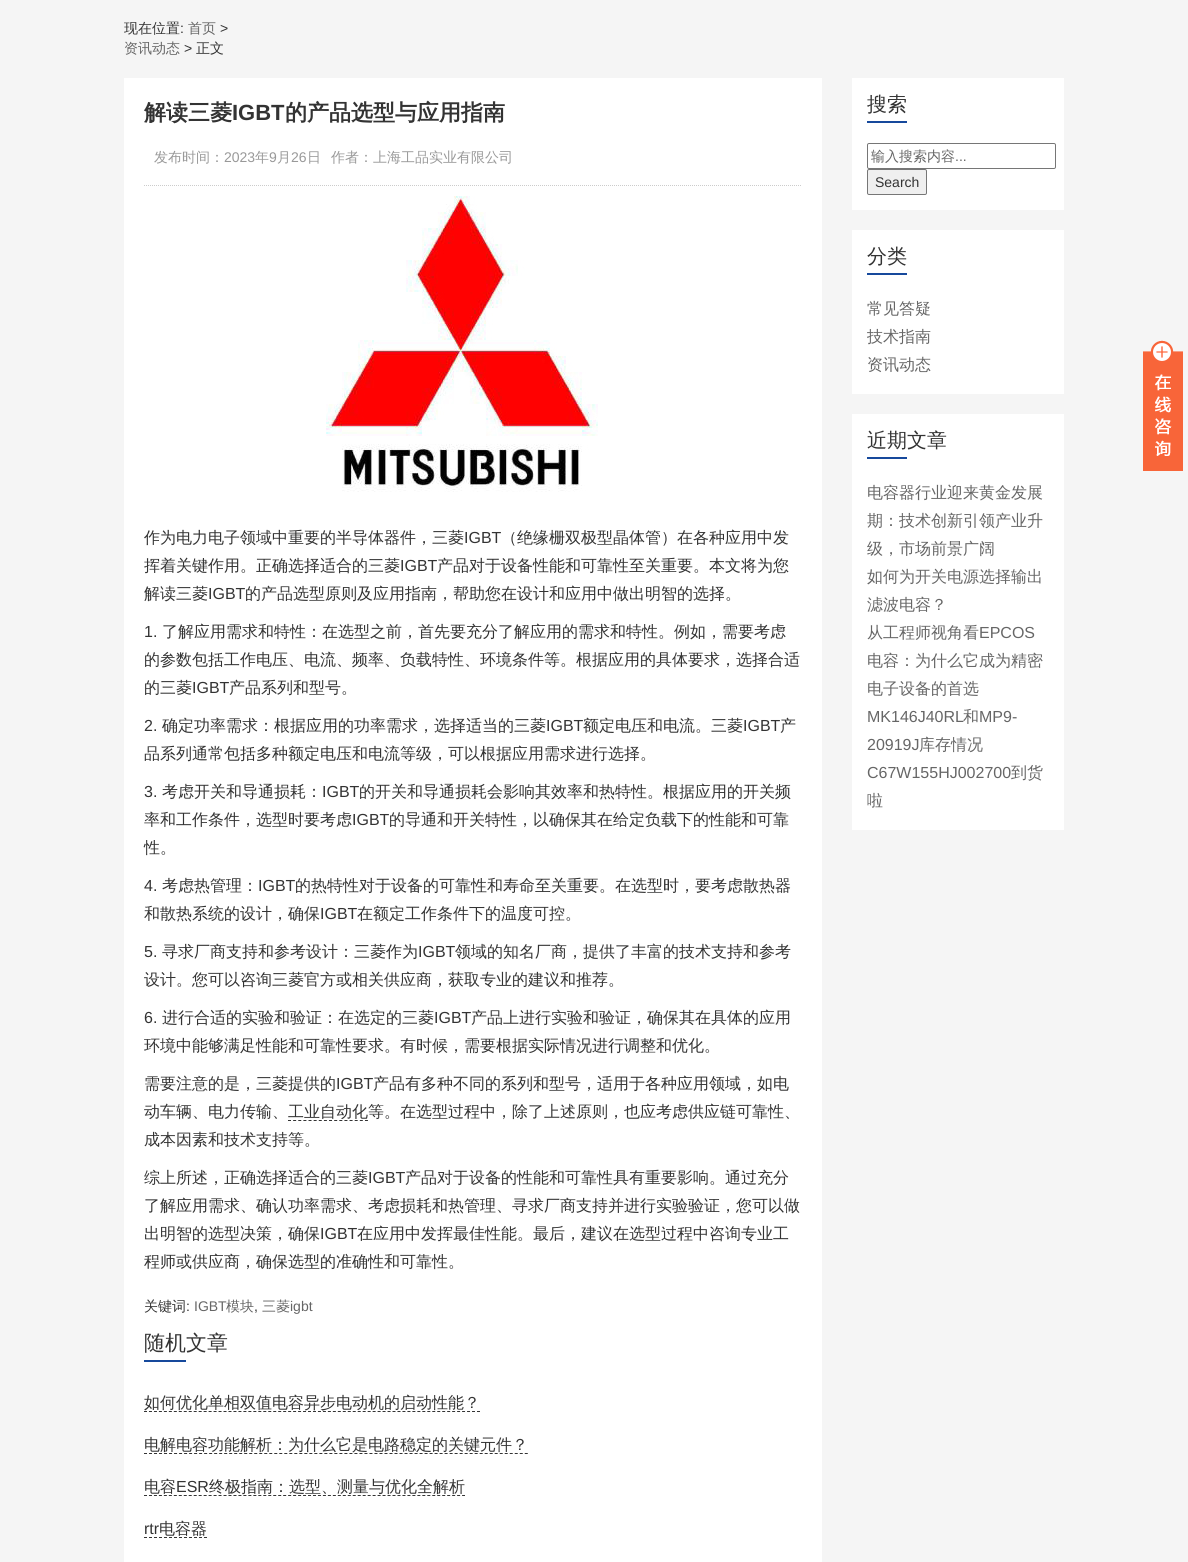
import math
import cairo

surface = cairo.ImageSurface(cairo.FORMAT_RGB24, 1188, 1562)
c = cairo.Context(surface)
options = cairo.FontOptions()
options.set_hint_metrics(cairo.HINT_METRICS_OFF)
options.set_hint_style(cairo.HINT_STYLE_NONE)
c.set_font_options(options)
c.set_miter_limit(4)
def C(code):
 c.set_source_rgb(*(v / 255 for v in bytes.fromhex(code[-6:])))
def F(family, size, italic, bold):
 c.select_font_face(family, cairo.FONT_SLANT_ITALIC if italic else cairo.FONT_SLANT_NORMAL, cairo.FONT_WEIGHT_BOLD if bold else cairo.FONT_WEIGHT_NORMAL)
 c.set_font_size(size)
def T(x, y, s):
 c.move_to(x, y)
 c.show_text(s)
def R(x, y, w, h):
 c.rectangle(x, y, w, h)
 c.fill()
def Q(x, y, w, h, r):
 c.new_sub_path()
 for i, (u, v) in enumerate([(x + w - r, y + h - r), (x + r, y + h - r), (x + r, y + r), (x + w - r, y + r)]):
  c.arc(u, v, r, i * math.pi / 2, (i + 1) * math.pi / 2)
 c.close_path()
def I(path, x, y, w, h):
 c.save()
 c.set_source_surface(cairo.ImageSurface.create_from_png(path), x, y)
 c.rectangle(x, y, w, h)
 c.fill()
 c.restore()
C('f5f5f5')
c.paint()
F('WenQuanYi Zen Hei Medium',14,0,0)
C('333333')
T(124,33,'现在位置')
F('Liberation Sans',14,0,0)
T(180,33,':')
F('WenQuanYi Zen Hei Medium',14,0,0)
C('666666')
T(188,33,'首页')
F('Liberation Sans',14,0,0)
C('333333')
T(220,33,'>')
F('WenQuanYi Zen Hei Medium',14,0,0)
C('666666')
T(124,53,'资讯动态')
F('Liberation Sans',14,0,0)
C('333333')
T(184,53,'>')
F('WenQuanYi Zen Hei Medium',14,0,0)
T(196,53,'正文')
C('ffffff')
R(124,78,698,1484)
c.new_path()
c.move_to(144,185.5)
c.line_to(802,185.5)
C('cccccc')
c.set_line_width(1)
c.set_dash([1,1])
c.stroke()
F('WenQuanYi Zen Hei',22,0,1)
C('333333')
T(144,120,'解读三菱')
F('Liberation Sans',22,0,1)
T(232,120,'IGBT')
F('WenQuanYi Zen Hei',22,0,1)
T(285,120,'的产品选型与应用指南')
F('WenQuanYi Zen Hei Medium',14,0,0)
C('999999')
T(154,162,'发布时间：')
F('Liberation Sans',14,0,0)
T(224,162,'2023')
F('WenQuanYi Zen Hei Medium',14,0,0)
T(255,162,'年')
F('Liberation Sans',14,0,0)
T(269,162,'9')
F('WenQuanYi Zen Hei Medium',14,0,0)
T(277,162,'月')
F('Liberation Sans',14,0,0)
T(291,162,'26')
F('WenQuanYi Zen Hei Medium',14,0,0)
T(307,162,'日')
T(331,162,'作者：上海工品实业有限公司')
I('1.png',326,196,272,296)
F('WenQuanYi Zen Hei Medium',16,0,0)
C('333333')
T(144,543,'作为电力电子领域中重要的半导体器件，三菱')
F('Liberation Sans',16,0,0)
T(464,543,'IGBT')
F('WenQuanYi Zen Hei Medium',16,0,0)
T(501,543,'（绝缘栅双极型晶体管）在各种应用中发')
T(144,571,'挥着关键作用。正确选择适合的三菱')
F('Liberation Sans',16,0,0)
T(400,571,'IGBT')
F('WenQuanYi Zen Hei Medium',16,0,0)
T(437,571,'产品对于设备性能和可靠性至关重要。本文将为您')
T(144,599,'解读三菱')
F('Liberation Sans',16,0,0)
T(208,599,'IGBT')
F('WenQuanYi Zen Hei Medium',16,0,0)
T(245,599,'的产品选型原则及应用指南，帮助您在设计和应用中做出明智的选择。')
F('Liberation Sans',16,0,0)
T(144,637,'1.')
F('WenQuanYi Zen Hei Medium',16,0,0)
T(162,637,'了解应用需求和特性：在选型之前，首先要充分了解应用的需求和特性。例如，需要考虑')
T(144,665,'的参数包括工作电压、电流、频率、负载特性、环境条件等。根据应用的具体要求，选择合适')
T(144,693,'的三菱')
F('Liberation Sans',16,0,0)
T(192,693,'IGBT')
F('WenQuanYi Zen Hei Medium',16,0,0)
T(229,693,'产品系列和型号。')
F('Liberation Sans',16,0,0)
T(144,731,'2.')
F('WenQuanYi Zen Hei Medium',16,0,0)
T(162,731,'确定功率需求：根据应用的功率需求，选择适当的三菱')
F('Liberation Sans',16,0,0)
T(546,731,'IGBT')
F('WenQuanYi Zen Hei Medium',16,0,0)
T(583,731,'额定电压和电流。三菱')
F('Liberation Sans',16,0,0)
T(743,731,'IGBT')
F('WenQuanYi Zen Hei Medium',16,0,0)
T(780,731,'产')
T(144,759,'品系列通常包括多种额定电压和电流等级，可以根据应用需求进行选择。')
F('Liberation Sans',16,0,0)
T(144,797,'3.')
F('WenQuanYi Zen Hei Medium',16,0,0)
T(162,797,'考虑开关和导通损耗：')
F('Liberation Sans',16,0,0)
T(322,797,'IGBT')
F('WenQuanYi Zen Hei Medium',16,0,0)
T(359,797,'的开关和导通损耗会影响其效率和热特性。根据应用的开关频')
T(144,825,'率和工作条件，选型时要考虑')
F('Liberation Sans',16,0,0)
T(352,825,'IGBT')
F('WenQuanYi Zen Hei Medium',16,0,0)
T(389,825,'的导通和开关特性，以确保其在给定负载下的性能和可靠')
T(144,853,'性。')
F('Liberation Sans',16,0,0)
T(144,891,'4.')
F('WenQuanYi Zen Hei Medium',16,0,0)
T(162,891,'考虑热管理：')
F('Liberation Sans',16,0,0)
T(258,891,'IGBT')
F('WenQuanYi Zen Hei Medium',16,0,0)
T(295,891,'的热特性对于设备的可靠性和寿命至关重要。在选型时，要考虑散热器')
T(144,919,'和散热系统的设计，确保')
F('Liberation Sans',16,0,0)
T(320,919,'IGBT')
F('WenQuanYi Zen Hei Medium',16,0,0)
T(357,919,'在额定工作条件下的温度可控。')
F('Liberation Sans',16,0,0)
T(144,957,'5.')
F('WenQuanYi Zen Hei Medium',16,0,0)
T(162,957,'寻求厂商支持和参考设计：三菱作为')
F('Liberation Sans',16,0,0)
T(418,957,'IGBT')
F('WenQuanYi Zen Hei Medium',16,0,0)
T(455,957,'领域的知名厂商，提供了丰富的技术支持和参考')
T(144,985,'设计。您可以咨询三菱官方或相关供应商，获取专业的建议和推荐。')
F('Liberation Sans',16,0,0)
T(144,1023,'6.')
F('WenQuanYi Zen Hei Medium',16,0,0)
T(162,1023,'进行合适的实验和验证：在选定的三菱')
F('Liberation Sans',16,0,0)
T(434,1023,'IGBT')
F('WenQuanYi Zen Hei Medium',16,0,0)
T(471,1023,'产品上进行实验和验证，确保其在具体的应用')
T(144,1051,'环境中能够满足性能和可靠性要求。有时候，需要根据实际情况进行调整和优化。')
T(144,1089,'需要注意的是，三菱提供的')
F('Liberation Sans',16,0,0)
T(336,1089,'IGBT')
F('WenQuanYi Zen Hei Medium',16,0,0)
T(373,1089,'产品有多种不同的系列和型号，适用于各种应用领域，如电')
T(144,1117,'动车辆、电力传输、工业自动化等。在选型过程中，除了上述原则，也应考虑供应链可靠性、')
c.new_path()
c.move_to(288,1120.5)
c.line_to(368,1120.5)
c.set_dash([3,2.13])
c.stroke()
T(144,1145,'成本因素和技术支持等。')
T(144,1183,'综上所述，正确选择适合的三菱')
F('Liberation Sans',16,0,0)
T(368,1183,'IGBT')
F('WenQuanYi Zen Hei Medium',16,0,0)
T(405,1183,'产品对于设备的性能和可靠性具有重要影响。通过充分')
T(144,1211,'了解应用需求、确认功率需求、考虑损耗和热管理、寻求厂商支持并进行实验验证，您可以做')
T(144,1239,'出明智的选型决策，确保')
F('Liberation Sans',16,0,0)
T(320,1239,'IGBT')
F('WenQuanYi Zen Hei Medium',16,0,0)
T(357,1239,'在应用中发挥最佳性能。最后，建议在选型过程中咨询专业工')
T(144,1267,'程师或供应商，确保选型的准确性和可靠性。')
F('WenQuanYi Zen Hei Medium',14,0,0)
T(144,1311,'关键词')
F('Liberation Sans',14,0,0)
T(186,1311,':')
C('666666')
T(194,1311,'IGBT')
F('WenQuanYi Zen Hei Medium',14,0,0)
T(226,1311,'模块')
F('Liberation Sans',14,0,0)
C('333333')
T(254,1311,',')
F('WenQuanYi Zen Hei Medium',14,0,0)
C('666666')
T(262,1311,'三菱')
F('Liberation Sans',14,0,0)
T(290,1311,'igbt')
F('WenQuanYi Zen Hei Medium',21,0,0)
C('333333')
T(144,1350,'随机文章')
C('16499c')
R(144,1360,42,2)
F('WenQuanYi Zen Hei Medium',16,0,0)
C('333333')
T(144,1408,'如何优化单相双值电容异步电动机的启动性能？')
c.new_path()
c.move_to(144,1411.5)
c.line_to(480,1411.5)
c.set_dash([3,1.97])
c.stroke()
T(144,1450,'电解电容功能解析：为什么它是电路稳定的关键元件？')
c.new_path()
c.move_to(144,1453.5)
c.line_to(528,1453.5)
c.set_dash([3,2.01])
c.stroke()
T(144,1492,'电容')
F('Liberation Sans',16,0,0)
T(176,1492,'ESR')
c.new_path()
c.move_to(144,1495.5)
c.line_to(465,1495.5)
c.set_dash([3,1.97])
c.stroke()
F('WenQuanYi Zen Hei Medium',16,0,0)
T(209,1492,'终极指南：选型、测量与优化全解析')
F('Liberation Sans',16,0,0)
T(144,1534,'rtr')
c.new_path()
c.move_to(144,1537.5)
c.line_to(207,1537.5)
c.set_dash([3,2])
c.stroke()
F('WenQuanYi Zen Hei Medium',16,0,0)
T(159,1534,'电容器')
C('ffffff')
R(852,78,212,132)
F('WenQuanYi Zen Hei Medium',20,0,0)
C('333333')
T(867,111,'搜索')
C('16499c')
R(867,121,40,2)
Q(867.5,143.5,188,25,1.5)
C('767676')
c.set_dash([])
c.stroke()
c.save()
c.rectangle(871,148,181,18)
c.clip()
F('WenQuanYi Zen Hei Medium',14,0,0)
C('666666')
T(871,161,'输入搜索内容')
c.restore()
F('Liberation Sans',14,0,0)
C('666666')
T(955,161,'...')
C('efefef')
Q(867.5,169.5,59,25,1.5)
c.fill_preserve()
C('767676')
c.stroke()
C('333333')
T(875,187,'Search')
C('ffffff')
R(852,230,212,164)
F('WenQuanYi Zen Hei Medium',20,0,0)
C('333333')
T(867,263,'分类')
C('16499c')
R(867,273,40,2)
F('WenQuanYi Zen Hei Medium',16,0,0)
C('666666')
T(867,314,'常见答疑')
T(867,342,'技术指南')
T(867,370,'资讯动态')
C('ffffff')
R(852,414,212,416)
F('WenQuanYi Zen Hei Medium',20,0,0)
C('333333')
T(867,447,'近期文章')
C('16499c')
R(867,457,40,2)
F('WenQuanYi Zen Hei Medium',16,0,0)
C('666666')
T(867,498,'电容器行业迎来黄金发展')
T(867,526,'期：技术创新引领产业升')
T(867,554,'级，市场前景广阔')
T(867,582,'如何为开关电源选择输出')
T(867,610,'滤波电容？')
T(867,638,'从工程师视角看')
F('Liberation Sans',16,0,0)
T(979,638,'EPCOS')
F('WenQuanYi Zen Hei Medium',16,0,0)
T(867,666,'电容：为什么它成为精密')
T(867,694,'电子设备的首选')
F('Liberation Sans',16,0,0)
T(867,722,'MK146J40RL')
F('WenQuanYi Zen Hei Medium',16,0,0)
T(963,722,'和')
F('Liberation Sans',16,0,0)
T(979,722,'MP9-')
T(867,750,'20919J')
F('WenQuanYi Zen Hei Medium',16,0,0)
T(919,750,'库存情况')
F('Liberation Sans',16,0,0)
T(867,778,'C67W155HJ002700')
F('WenQuanYi Zen Hei Medium',16,0,0)
T(1011,778,'到货')
T(867,806,'啦')
I('2.png',1143,340,40,131)
surface.write_to_png('o.png')
